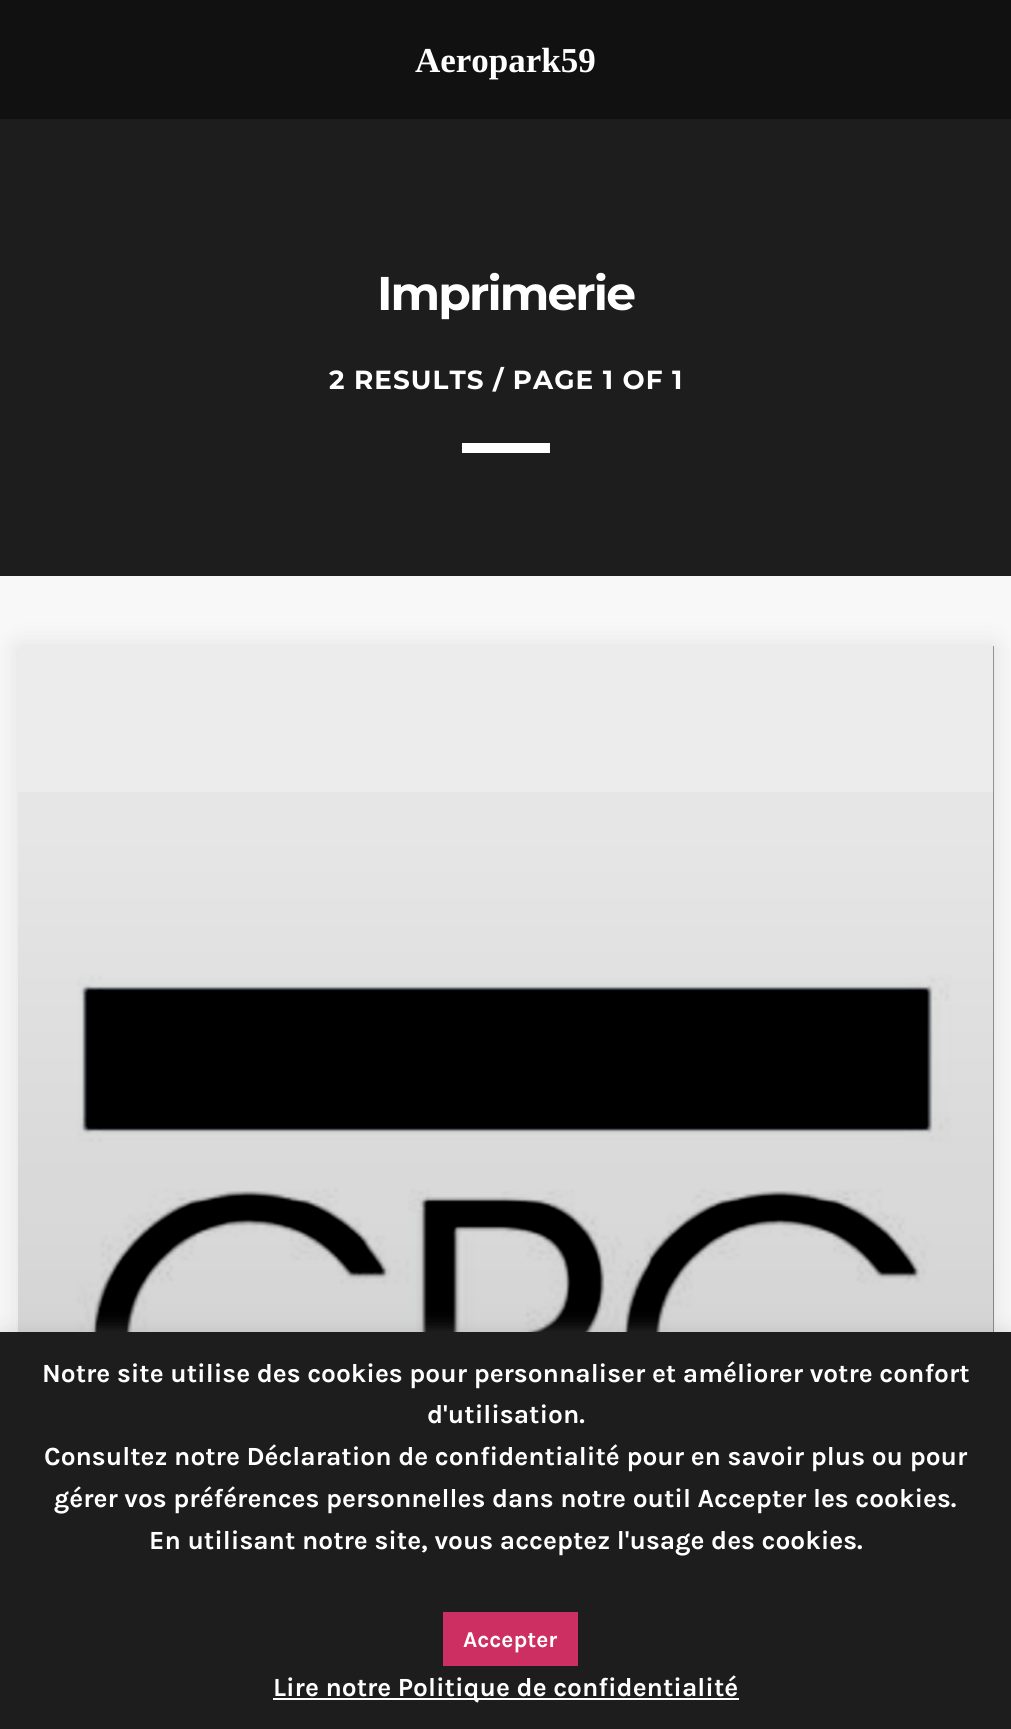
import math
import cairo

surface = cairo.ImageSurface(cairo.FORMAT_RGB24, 1011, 1729)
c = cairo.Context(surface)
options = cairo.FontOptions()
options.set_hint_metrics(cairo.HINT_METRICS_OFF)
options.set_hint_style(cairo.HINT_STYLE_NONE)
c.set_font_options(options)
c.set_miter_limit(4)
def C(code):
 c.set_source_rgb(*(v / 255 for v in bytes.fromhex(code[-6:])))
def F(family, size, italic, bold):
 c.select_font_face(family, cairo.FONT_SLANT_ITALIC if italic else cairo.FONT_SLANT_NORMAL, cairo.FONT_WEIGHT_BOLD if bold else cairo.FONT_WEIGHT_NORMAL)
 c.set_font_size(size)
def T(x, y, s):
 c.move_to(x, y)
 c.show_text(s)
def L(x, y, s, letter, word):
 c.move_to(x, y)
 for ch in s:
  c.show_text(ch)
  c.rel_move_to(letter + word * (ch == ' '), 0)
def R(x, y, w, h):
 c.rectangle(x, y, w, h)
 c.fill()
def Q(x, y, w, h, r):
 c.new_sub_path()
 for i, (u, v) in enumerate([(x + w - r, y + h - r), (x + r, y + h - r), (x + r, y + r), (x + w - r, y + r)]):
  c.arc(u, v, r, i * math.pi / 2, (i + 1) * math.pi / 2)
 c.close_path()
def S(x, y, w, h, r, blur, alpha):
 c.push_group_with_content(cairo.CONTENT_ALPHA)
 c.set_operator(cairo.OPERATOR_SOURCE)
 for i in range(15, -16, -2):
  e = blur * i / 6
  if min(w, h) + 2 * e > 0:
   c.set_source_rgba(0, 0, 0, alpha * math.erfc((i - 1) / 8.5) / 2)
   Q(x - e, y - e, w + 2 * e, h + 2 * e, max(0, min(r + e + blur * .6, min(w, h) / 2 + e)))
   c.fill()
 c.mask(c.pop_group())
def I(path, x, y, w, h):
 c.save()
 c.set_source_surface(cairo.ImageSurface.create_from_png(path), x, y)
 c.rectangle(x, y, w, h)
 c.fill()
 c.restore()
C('f8f8f8')
c.paint()
C('111111')
R(0,0,1011,119)
F('Liberation Serif',35,0,1)
C('ffffff')
T(415,72,'Aeropark59')
C('1d1d1d')
R(0,119,1011,457)
F('Montserrat',47.25,0,1)
C('ffffff')
L(377,310,'Imprimerie',-1.9,0)
F('Montserrat',26.25,0,1)
L(329,389,'2 RESULTS / PAGE 1 OF 1',1.05,0)
R(462,443,88,10)
C('000000')
S(18,646,976,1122,0,13,.1)
C('000000')
R(993,646,1,686)
I('1.png',18,646,976,686)
gradient = cairo.LinearGradient(506,646,506,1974)
gradient.add_color_stop_rgba(0,0,0,0,0)
gradient.add_color_stop_rgba(.51,0,0,0,.1)
gradient.add_color_stop_rgba(.71,0,0,0,.55)
gradient.add_color_stop_rgba(1,0,0,0,.75)
c.set_source(gradient)
R(18,792,976,540)
C('acabab')
S(0,1330,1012,397,0,9,.3)
C('1d1d1d')
R(0,1332,1011,397)
F('Karla',26.25,0,1)
C('ffffff')
T(42,1382,'Notre site utilise des cookies pour personnaliser et améliorer votre confort')
T(427,1423,'d\'utilisation.')
T(44,1465,'Consultez notre Déclaration de confidentialité pour en savoir plus ou pour')
T(54,1507,'gérer vos préférences personnelles dans notre outil Accepter les cookies.')
T(149,1549,'En utilisant notre site, vous acceptez l\'usage des cookies.')
C('ce2f63')
R(443,1612,135,54)
F('Karla',22.75,0,1)
C('ffffff')
T(463,1647,'Accepter')
R(273,1698,466,2)
F('Karla',26.25,0,1)
T(273,1696,'Lire notre Politique de confidentialité')
surface.write_to_png('o.png')
